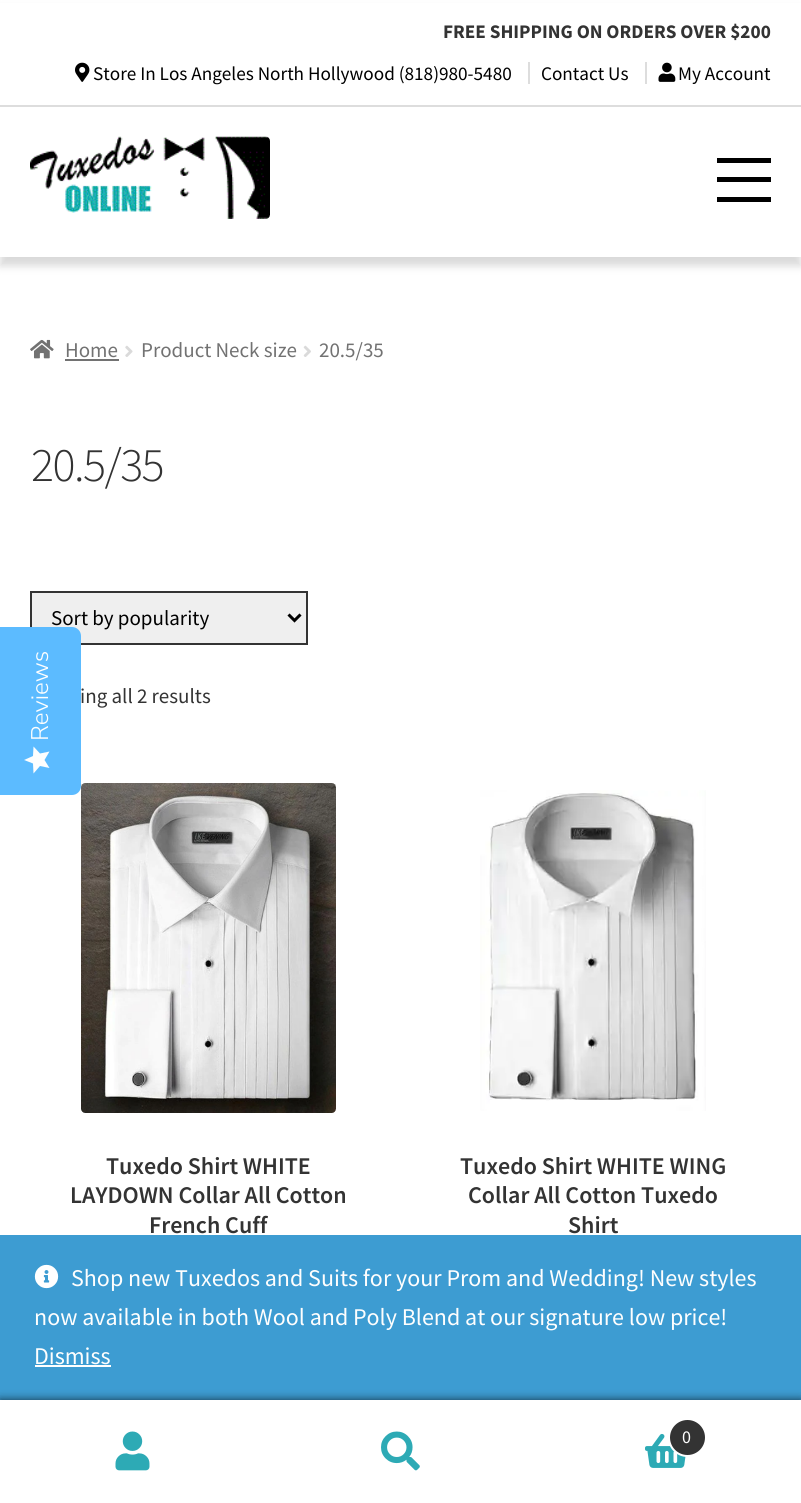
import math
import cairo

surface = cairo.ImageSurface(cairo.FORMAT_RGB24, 801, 1503)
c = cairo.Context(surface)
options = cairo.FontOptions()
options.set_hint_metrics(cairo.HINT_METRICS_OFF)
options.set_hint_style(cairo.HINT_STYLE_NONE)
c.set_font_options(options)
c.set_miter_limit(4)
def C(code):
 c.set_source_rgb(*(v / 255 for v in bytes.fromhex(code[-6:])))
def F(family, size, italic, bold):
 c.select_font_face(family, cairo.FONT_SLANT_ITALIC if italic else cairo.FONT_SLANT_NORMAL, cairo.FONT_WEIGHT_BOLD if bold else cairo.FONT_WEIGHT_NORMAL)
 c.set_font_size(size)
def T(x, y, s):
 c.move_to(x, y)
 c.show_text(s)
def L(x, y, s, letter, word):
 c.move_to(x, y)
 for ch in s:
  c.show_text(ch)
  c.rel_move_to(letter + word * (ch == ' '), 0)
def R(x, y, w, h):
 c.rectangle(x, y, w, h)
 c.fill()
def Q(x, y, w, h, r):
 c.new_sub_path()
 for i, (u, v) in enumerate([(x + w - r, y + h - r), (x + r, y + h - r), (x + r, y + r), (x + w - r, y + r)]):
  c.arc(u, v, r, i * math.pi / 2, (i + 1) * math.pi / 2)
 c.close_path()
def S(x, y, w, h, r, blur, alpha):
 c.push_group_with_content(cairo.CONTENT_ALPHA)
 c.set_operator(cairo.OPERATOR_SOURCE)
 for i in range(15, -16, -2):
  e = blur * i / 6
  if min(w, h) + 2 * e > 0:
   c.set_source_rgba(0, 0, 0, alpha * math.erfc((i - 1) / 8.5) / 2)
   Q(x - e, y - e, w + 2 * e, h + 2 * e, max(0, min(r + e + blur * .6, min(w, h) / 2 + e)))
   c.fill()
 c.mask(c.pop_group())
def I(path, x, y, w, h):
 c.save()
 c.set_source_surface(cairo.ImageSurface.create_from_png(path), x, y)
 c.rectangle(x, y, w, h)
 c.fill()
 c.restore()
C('ffffff')
c.paint()
C('cccccc')
S(0,9,801,257,0,4,.73)
C('ffffff')
R(0,3,801,254)
C('dddddd')
R(0,105,801,2)
F('Source Sans Pro',19.2,0,1)
C('333333')
T(443,38,'FREE SHIPPING ON ORDERS OVER $200')
I('1.png',75,62,15,20)
F('Source Sans Pro',19.2,0,0)
C('000000')
T(93,80,'Store In Los Angeles North Hollywood (818)980-5480')
C('dddddd')
R(528,62,2,22)
C('000000')
T(541,80,'Contact Us')
C('dddddd')
R(645,62,2,22)
I('2.png',658,62,18,20)
C('000000')
T(678,80,'My Account')
I('3.png',30,136,240,83)
R(717,158,54,5)
R(717,177,54,5)
R(717,197,54,5)
I('4.png',30,339,24,20)
F('Source Sans Pro',21,0,0)
C('727272')
T(65,357,'Home')
R(65,359,54,2)
I('5.png',125,345,8,12)
T(141,357,'Product Neck size')
I('6.png',303,345,8,12)
T(319,357,'20.5/35')
F('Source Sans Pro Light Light',48,0,0)
C('333333')
L(31,481,'20.5/35',-1.5,0)
C('efefef')
c.rectangle(31,592,276,52)
c.fill_preserve()
C('333333')
c.stroke()
c.new_path()
c.move_to(288.5,614.5)
c.line_to(294.5,620.5)
c.line_to(300.5,614.5)
C('000000')
c.set_line_width(3)
c.stroke()
F('Source Sans Pro',21,0,0)
T(51,625,'Sort by popularity')
C('333333')
T(80,703,'ing all 2 results')
I('7.png',81,783,255,330)
F('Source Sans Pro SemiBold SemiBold',24,0,0)
T(106,1174,'Tuxedo Shirt WHITE')
T(70,1203,'LAYDOWN Collar All Cotton')
T(149,1233,'French Cuff')
I('8.png',480,790,226,321)
T(460,1174,'Tuxedo Shirt WHITE WING')
T(468,1203,'Collar All Cotton Tuxedo')
T(568,1233,'Shirt')
C('3d9cd2')
R(0,1235,801,165)
C('000000')
S(0,1400,801,103,0,4.5,.7)
C('ffffff')
R(0,1400,801,1)
R(0,1401,801,102)
I('9.png',115,1431,35,40)
I('10.png',381,1431,39,40)
I('11.png',645,1433,41,35)
C('333333')
c.arc(687.5,1437.5,18.5,0,2 * math.pi)
c.fill_preserve()
C('ffffff')
c.set_line_width(2)
c.stroke()
F('Source Sans Pro',18,0,0)
C('fefefe')
T(682,1443,'0')
C('5cbbff')
c.new_path()
c.move_to(0,795)
c.line_to(0,627)
c.line_to(72,627)
c.curve_to(77,627,81,631,81,636)
c.line_to(81,786)
c.curve_to(81,791,77,795,72,795)
c.close_path()
c.fill()
F('Nunito Sans Light',24,0,0)
C('fefefe')
c.save()
c.translate(48,741)
c.rotate(-90 * math.pi / 180)
T(0,0,'Reviews')
c.restore()
gradient = cairo.LinearGradient(24,773,24,746)
gradient.add_color_stop_rgba(1,0.996,0.996,0.996,1)
gradient.add_color_stop_rgba(1,0.918,0.918,0.918,1)
c.set_source(gradient)
c.new_path()
c.move_to(44.5,760)
c.line_to(49.5,751.5)
c.line_to(40,753.5)
c.line_to(33.5,746.5)
c.line_to(33,756)
c.line_to(24,760)
c.line_to(33,763.5)
c.line_to(33.5,773.5)
c.line_to(40,766)
c.line_to(49.5,768)
c.close_path()
c.fill()
I('12.png',34,1264,25,25)
F('Source Sans Pro',24,0,0)
C('fefefe')
T(71,1286,'Shop new Tuxedos and Suits for your Prom and Wedding! New styles')
T(34,1325,'now available in both Wool and Poly Blend at our signature low price!')
T(34,1364,'Dismiss')
C('ffffff')
R(35,1365,76,2)
surface.write_to_png('o.png')
